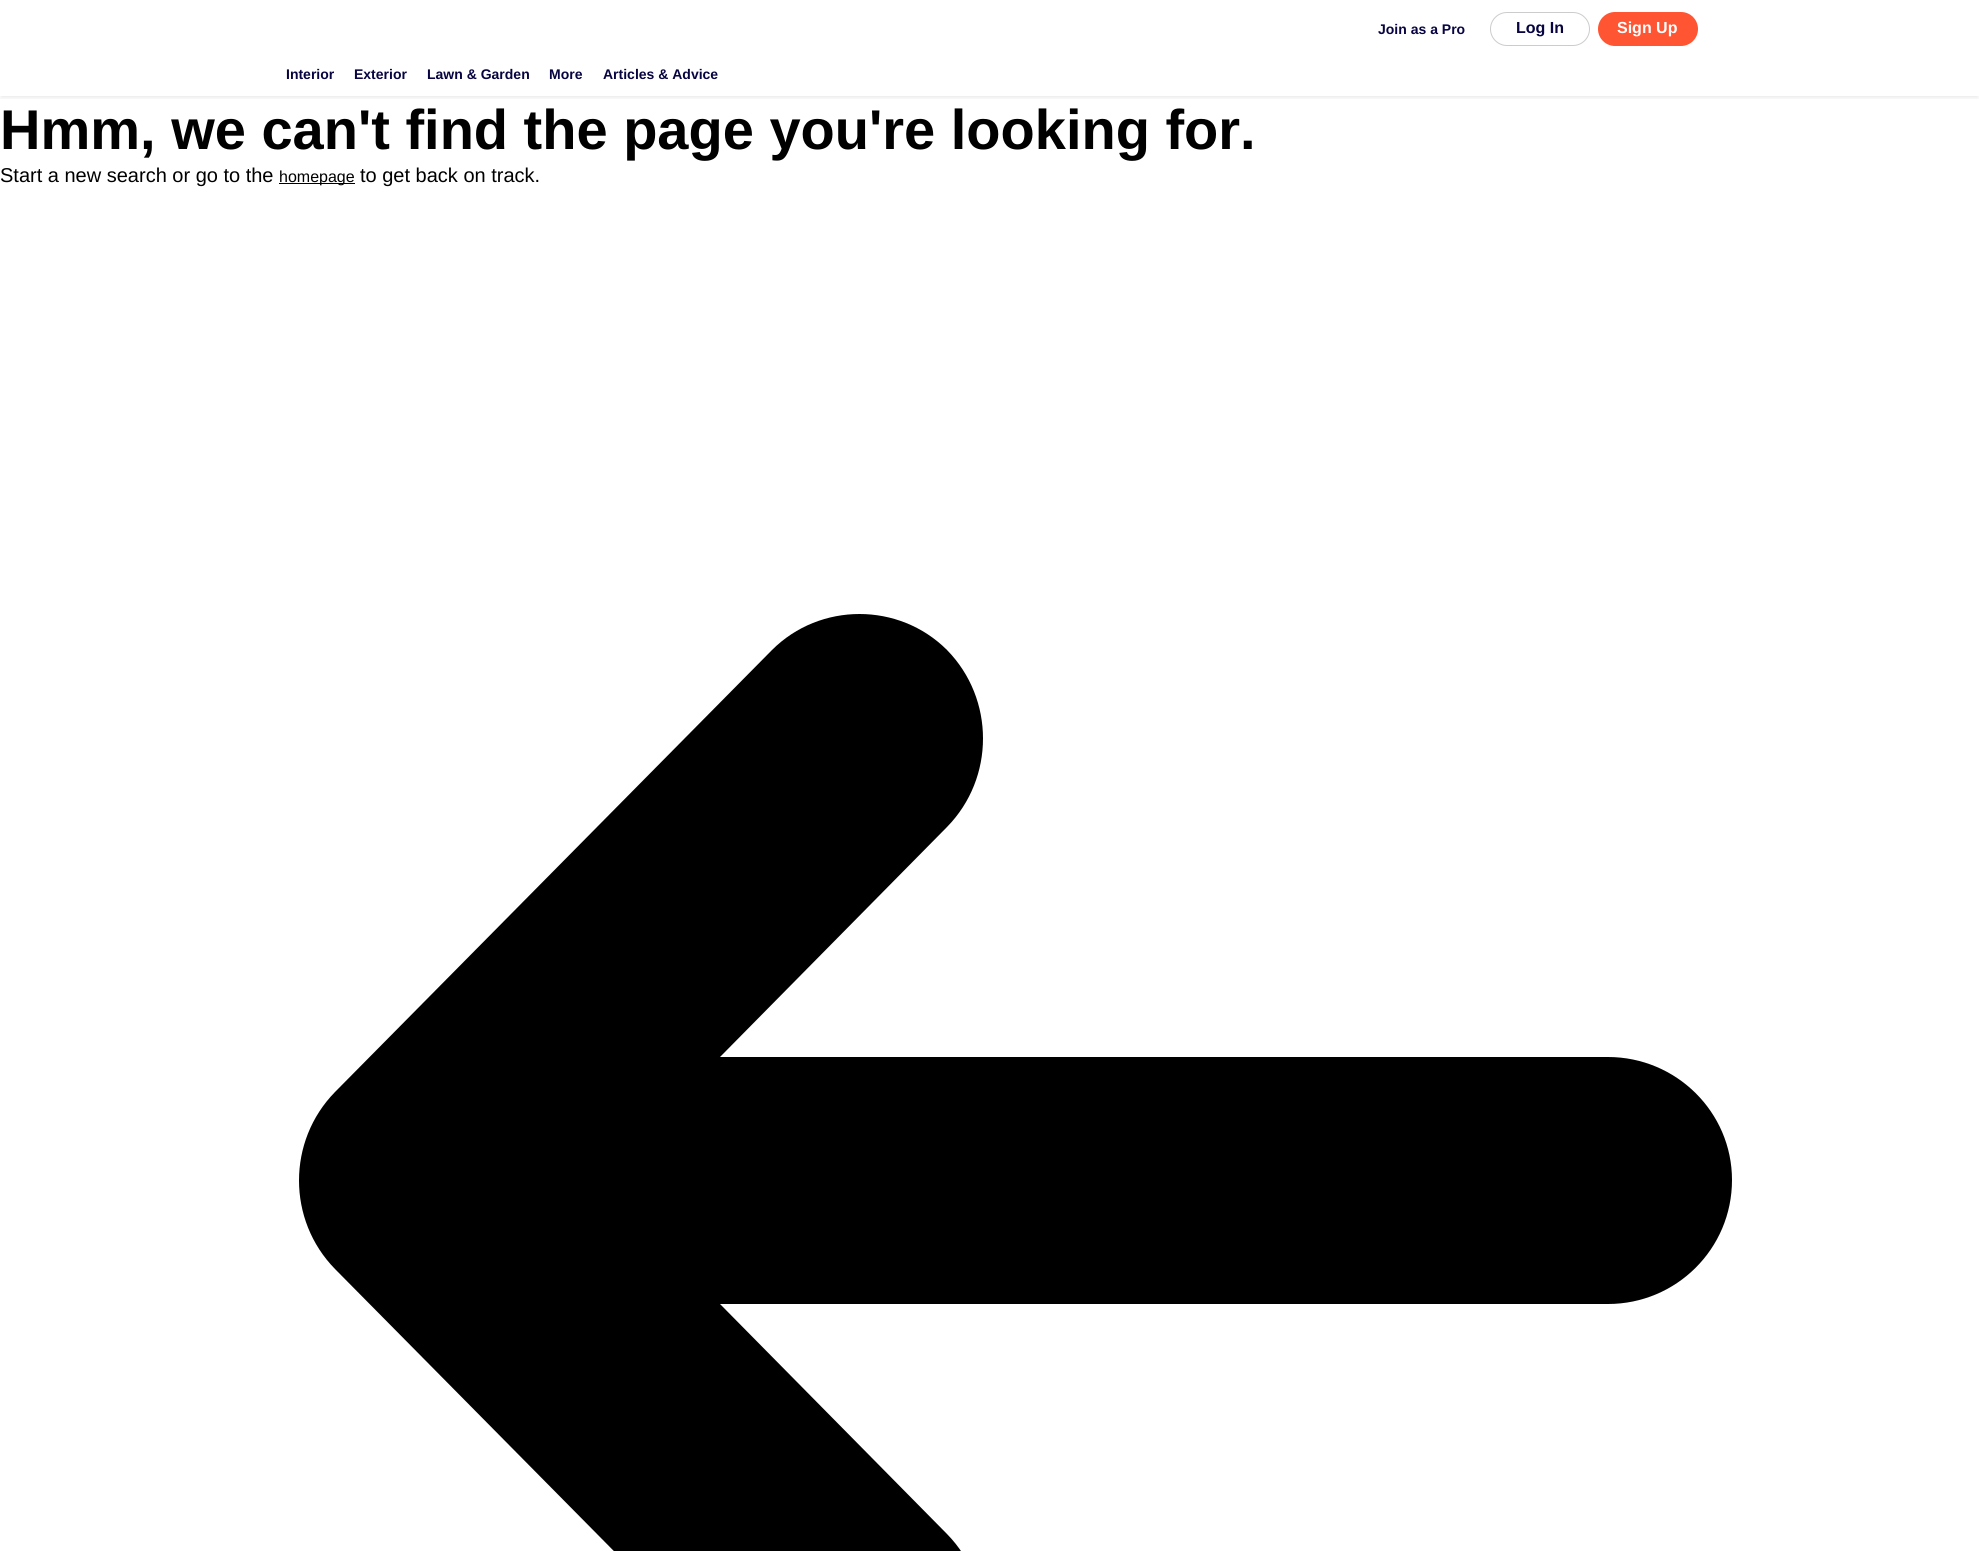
import math
import cairo

surface = cairo.ImageSurface(cairo.FORMAT_RGB24, 1979, 1551)
c = cairo.Context(surface)
options = cairo.FontOptions()
options.set_hint_metrics(cairo.HINT_METRICS_OFF)
options.set_hint_style(cairo.HINT_STYLE_NONE)
c.set_font_options(options)
c.set_miter_limit(4)
def C(code):
 c.set_source_rgb(*(v / 255 for v in bytes.fromhex(code[-6:])))
def F(family, size, italic, bold):
 c.select_font_face(family, cairo.FONT_SLANT_ITALIC if italic else cairo.FONT_SLANT_NORMAL, cairo.FONT_WEIGHT_BOLD if bold else cairo.FONT_WEIGHT_NORMAL)
 c.set_font_size(size)
def T(x, y, s):
 c.move_to(x, y)
 c.show_text(s)
def R(x, y, w, h):
 c.rectangle(x, y, w, h)
 c.fill()
def Q(x, y, w, h, r):
 c.new_sub_path()
 for i, (u, v) in enumerate([(x + w - r, y + h - r), (x + r, y + h - r), (x + r, y + r), (x + w - r, y + r)]):
  c.arc(u, v, r, i * math.pi / 2, (i + 1) * math.pi / 2)
 c.close_path()
def S(x, y, w, h, r, blur, alpha):
 c.push_group_with_content(cairo.CONTENT_ALPHA)
 c.set_operator(cairo.OPERATOR_SOURCE)
 for i in range(15, -16, -2):
  e = blur * i / 6
  if min(w, h) + 2 * e > 0:
   c.set_source_rgba(0, 0, 0, alpha * math.erfc((i - 1) / 8.5) / 2)
   Q(x - e, y - e, w + 2 * e, h + 2 * e, max(0, min(r + e + blur * .6, min(w, h) / 2 + e)))
   c.fill()
 c.mask(c.pop_group())
C('ffffff')
c.paint()
F('Liberation Sans',14,0,1)
C('070441')
T(1378,34,'Join as a Pro')
Q(1490.5,12.5,99,33,16.5)
C('cccccc')
c.set_line_width(1)
c.stroke()
F('Liberation Sans',16,0,1)
C('070441')
T(1516,33,'Log In')
C('ff5532')
Q(1598,12,100,34,17)
c.fill()
C('ffffff')
T(1617,33,'Sign Up')
c.save()
c.rectangle(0,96,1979,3)
c.clip()
C('000000')
S(1,66,1977,32,0,2,.08)
c.restore()
F('Liberation Sans',14,0,1)
C('070441')
T(286,79,'Interior')
T(354,79,'Exterior')
T(427,79,'Lawn & Garden')
T(549,79,'More')
T(603,79,'Articles & Advice')
F('Liberation Sans',56,0,1)
C('000000')
T(0,149,'Hmm, we can\'t find the page you\'re looking for.')
F('Liberation Sans',20,0,0)
T(0,182,'Start a new search or go to the')
R(279,183,76,1)
F('Liberation Sans',16,0,0)
T(279,182,'homepage')
F('Liberation Sans',20,0,0)
T(360,182,'to get back on track.')
c.set_fill_rule(cairo.FILL_RULE_EVEN_ODD)
c.new_path()
c.move_to(335,1269)
c.line_to(772,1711)
c.curve_to(820,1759,899,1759,947,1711)
c.curve_to(995,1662,995,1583,947,1534)
c.line_to(720,1304)
c.line_to(1608,1304)
c.curve_to(1676,1304,1732,1249,1732,1180)
c.curve_to(1732,1112,1676,1057,1608,1057)
c.line_to(720,1057)
c.line_to(947,827)
c.curve_to(995,778,995,699,947,650)
c.curve_to(899,602,820,602,772,650)
c.line_to(335,1092)
c.curve_to(287,1141,287,1220,335,1269)
c.close_path()
c.fill()
surface.write_to_png('o.png')
